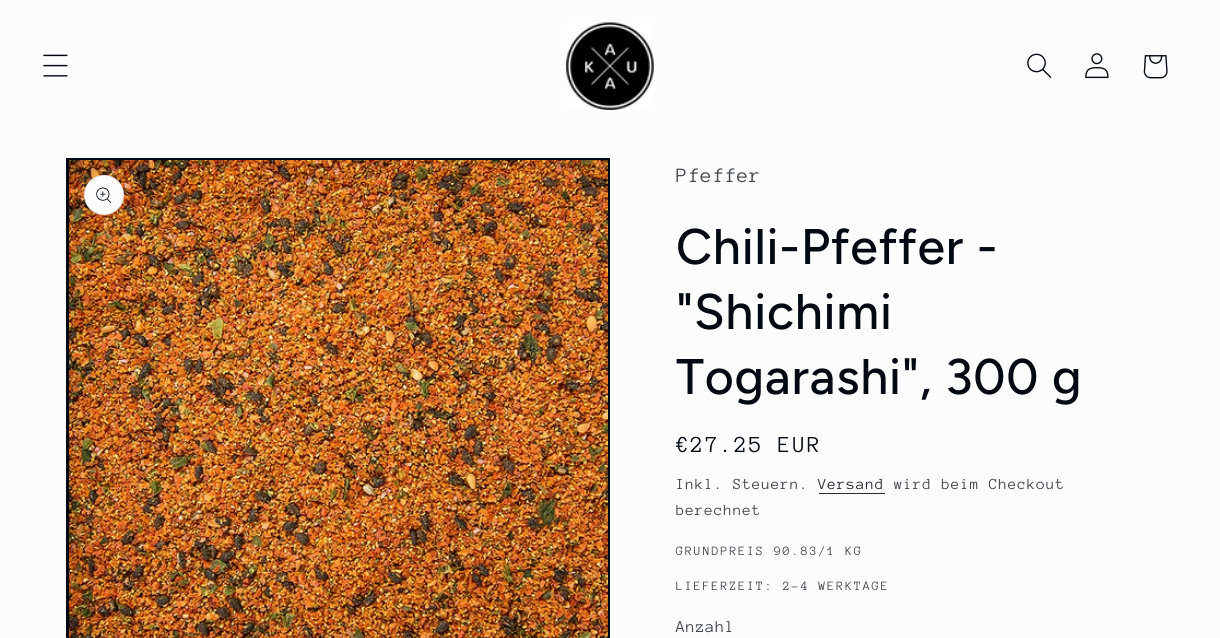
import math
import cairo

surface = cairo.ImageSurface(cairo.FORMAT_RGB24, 1220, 638)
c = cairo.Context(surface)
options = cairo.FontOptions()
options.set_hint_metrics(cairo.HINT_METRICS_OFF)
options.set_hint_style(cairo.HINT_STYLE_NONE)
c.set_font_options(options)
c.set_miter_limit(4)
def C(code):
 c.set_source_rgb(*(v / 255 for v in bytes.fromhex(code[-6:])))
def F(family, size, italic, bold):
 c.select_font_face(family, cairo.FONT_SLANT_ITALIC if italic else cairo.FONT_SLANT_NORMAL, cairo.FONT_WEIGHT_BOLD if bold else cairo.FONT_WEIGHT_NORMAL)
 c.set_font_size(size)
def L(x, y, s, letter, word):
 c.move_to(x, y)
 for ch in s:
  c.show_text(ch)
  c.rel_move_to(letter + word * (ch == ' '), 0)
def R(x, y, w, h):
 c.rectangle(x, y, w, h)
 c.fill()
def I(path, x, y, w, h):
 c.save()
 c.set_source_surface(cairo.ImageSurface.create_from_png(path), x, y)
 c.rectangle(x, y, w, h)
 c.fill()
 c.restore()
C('fcfcfc')
c.paint()
I('1.png',43,54,25,23)
I('2.png',566,22,88,88)
I('3.png',1027,53,25,25)
I('4.png',1085,53,24,26)
I('5.png',1143,55,25,24)
c.rectangle(67.5,159.5,541,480)
C('020912')
c.set_line_width(3)
c.stroke()
I('6.png',69,160,539,478)
C('fcfcfc')
c.arc(104,195,20,0,2 * math.pi)
c.fill()
c.arc(104,195,19.5,0,2 * math.pi)
c.set_source_rgba(0.008,0.035,0.071,0.1)
c.set_line_width(1)
c.stroke()
I('7.png',96,187,15,17)
F('Anonymous Pro',21,0,0)
C('41464d')
L(676,182,'Pfeffer',.75,0)
F('Figtree Medium',50,0,0)
C('020912')
L(676,264,'Chili-Pfeffer -',.75,0)
L(676,329,'"Shichimi',.75,0)
L(676,394,'Togarashi", 300 g',.75,0)
F('Anonymous Pro',23.5,0,0)
L(676,452,'€27.25 EUR',1.75,0)
F('Anonymous Pro',15.75,0,0)
C('41464d')
L(676,489,'Inkl. Steuern.',.9,0)
C('282d35')
L(818,489,'Versand',.9,0)
R(819,493,66,1)
C('41464d')
L(894,489,'wird beim Checkout',.9,0)
L(676,515,'berechnet',.9,0)
F('Anonymous Pro',13.1,0,0)
L(676,555,'GRUNDPREIS 90.83/1 KG',1.75,0)
L(676,590,'LIEFERZEIT: 2-4 WERKTAGE',1.75,0)
F('Anonymous Pro',17,0,0)
L(676,632,'Anzahl',.5,0)
surface.write_to_png('o.png')
